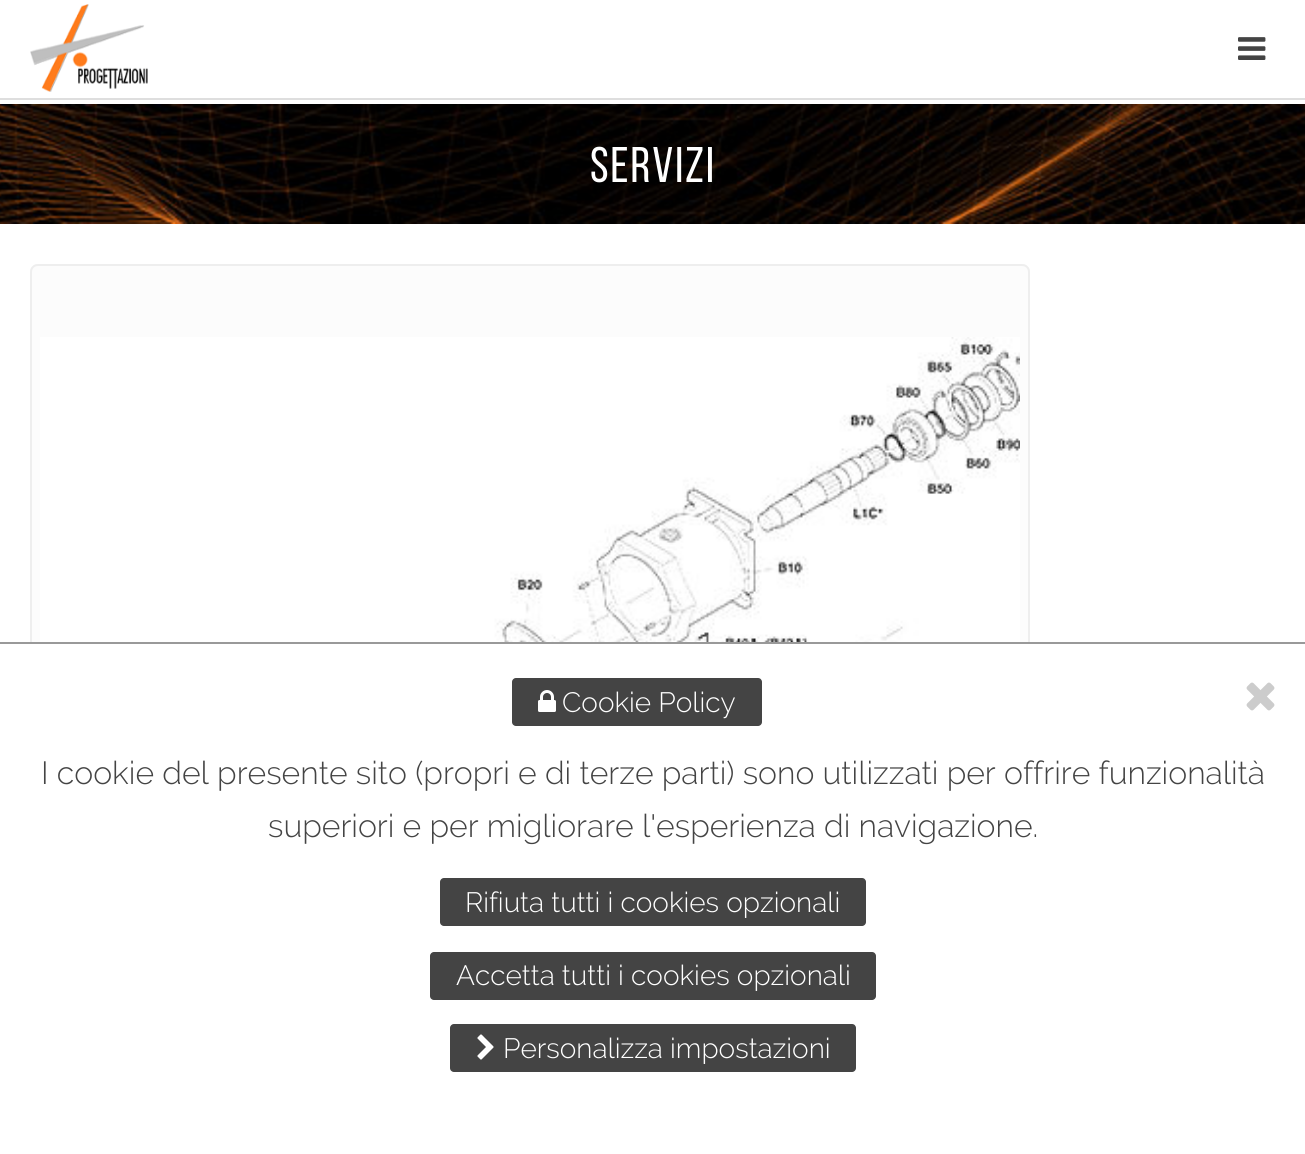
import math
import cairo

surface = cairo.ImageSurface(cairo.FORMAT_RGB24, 1305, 1154)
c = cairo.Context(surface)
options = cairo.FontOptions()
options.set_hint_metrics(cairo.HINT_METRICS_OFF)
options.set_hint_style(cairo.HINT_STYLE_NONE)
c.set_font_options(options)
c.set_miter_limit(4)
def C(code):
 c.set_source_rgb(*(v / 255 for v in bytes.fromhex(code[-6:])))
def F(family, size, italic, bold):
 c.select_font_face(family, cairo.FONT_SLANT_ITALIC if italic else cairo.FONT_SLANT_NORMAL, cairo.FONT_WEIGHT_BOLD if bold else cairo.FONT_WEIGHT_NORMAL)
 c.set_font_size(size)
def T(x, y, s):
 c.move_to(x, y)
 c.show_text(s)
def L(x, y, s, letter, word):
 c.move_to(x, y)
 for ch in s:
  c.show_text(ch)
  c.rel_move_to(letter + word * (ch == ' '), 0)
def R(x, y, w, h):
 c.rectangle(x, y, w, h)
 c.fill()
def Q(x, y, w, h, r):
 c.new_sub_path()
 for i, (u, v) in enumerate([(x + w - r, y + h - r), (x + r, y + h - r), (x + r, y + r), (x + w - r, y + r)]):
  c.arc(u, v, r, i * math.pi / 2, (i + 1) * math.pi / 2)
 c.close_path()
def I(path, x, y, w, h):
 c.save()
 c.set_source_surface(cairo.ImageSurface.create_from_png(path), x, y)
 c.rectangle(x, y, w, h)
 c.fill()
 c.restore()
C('ffffff')
c.paint()
C('dedede')
R(0,98,1305,2)
I('1.png',30,4,118,88)
I('2.png',1238,37,28,23)
I('3.png',0,104,1305,120)
F('Bebas Neue',50,0,0)
C('ffffff')
L(590,182,'SERVIZI',2,0)
C('fcfcfc')
Q(30,264,1000,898,8)
c.fill()
c.new_path()
c.move_to(33,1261)
c.curve_to(31.5,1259.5,31,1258,31,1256)
c.line_to(31,272)
c.curve_to(31,270,31.5,268.5,33,267)
c.curve_to(34.5,265.5,36,265,38,265)
c.line_to(1022,265)
c.curve_to(1024,265,1025.5,265.5,1027,267)
c.curve_to(1028.5,268.5,1029,270,1029,272)
c.line_to(1029,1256)
c.curve_to(1029,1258,1028.5,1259.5,1027,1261)
C('eeeeee')
c.stroke()
I('4.png',40,337,980,305)
C('ffffff')
R(30,644,1000,510)
C('999999')
R(0,642,1305,2)
C('444444')
Q(512,678,250,48,4)
c.fill()
I('5.png',538,690,18,22)
F('Raleway Light',28,0,0)
C('ffffff')
T(562,712,'Cookie Policy')
I('6.png',1246,682,29,29)
F('Raleway Light',32,0,0)
C('444444')
T(41,784,'I cookie del presente sito (propri e di terze parti) sono utilizzati per offrire funzionalità')
T(268,837,'superiori e per migliorare l\'esperienza di navigazione.')
Q(440,878,426,48,4)
c.fill()
F('Raleway Light',28,0,0)
C('ffffff')
T(465,912,'Rifiuta tutti i cookies opzionali')
C('444444')
Q(430,952,446,48,4)
c.fill()
C('ffffff')
T(456,985,'Accetta tutti i cookies opzionali')
C('444444')
Q(450,1024,406,48,4)
c.fill()
I('7.png',477,1034,17,26)
C('ffffff')
T(503,1058,'Personalizza impostazioni')
surface.write_to_png('o.png')
